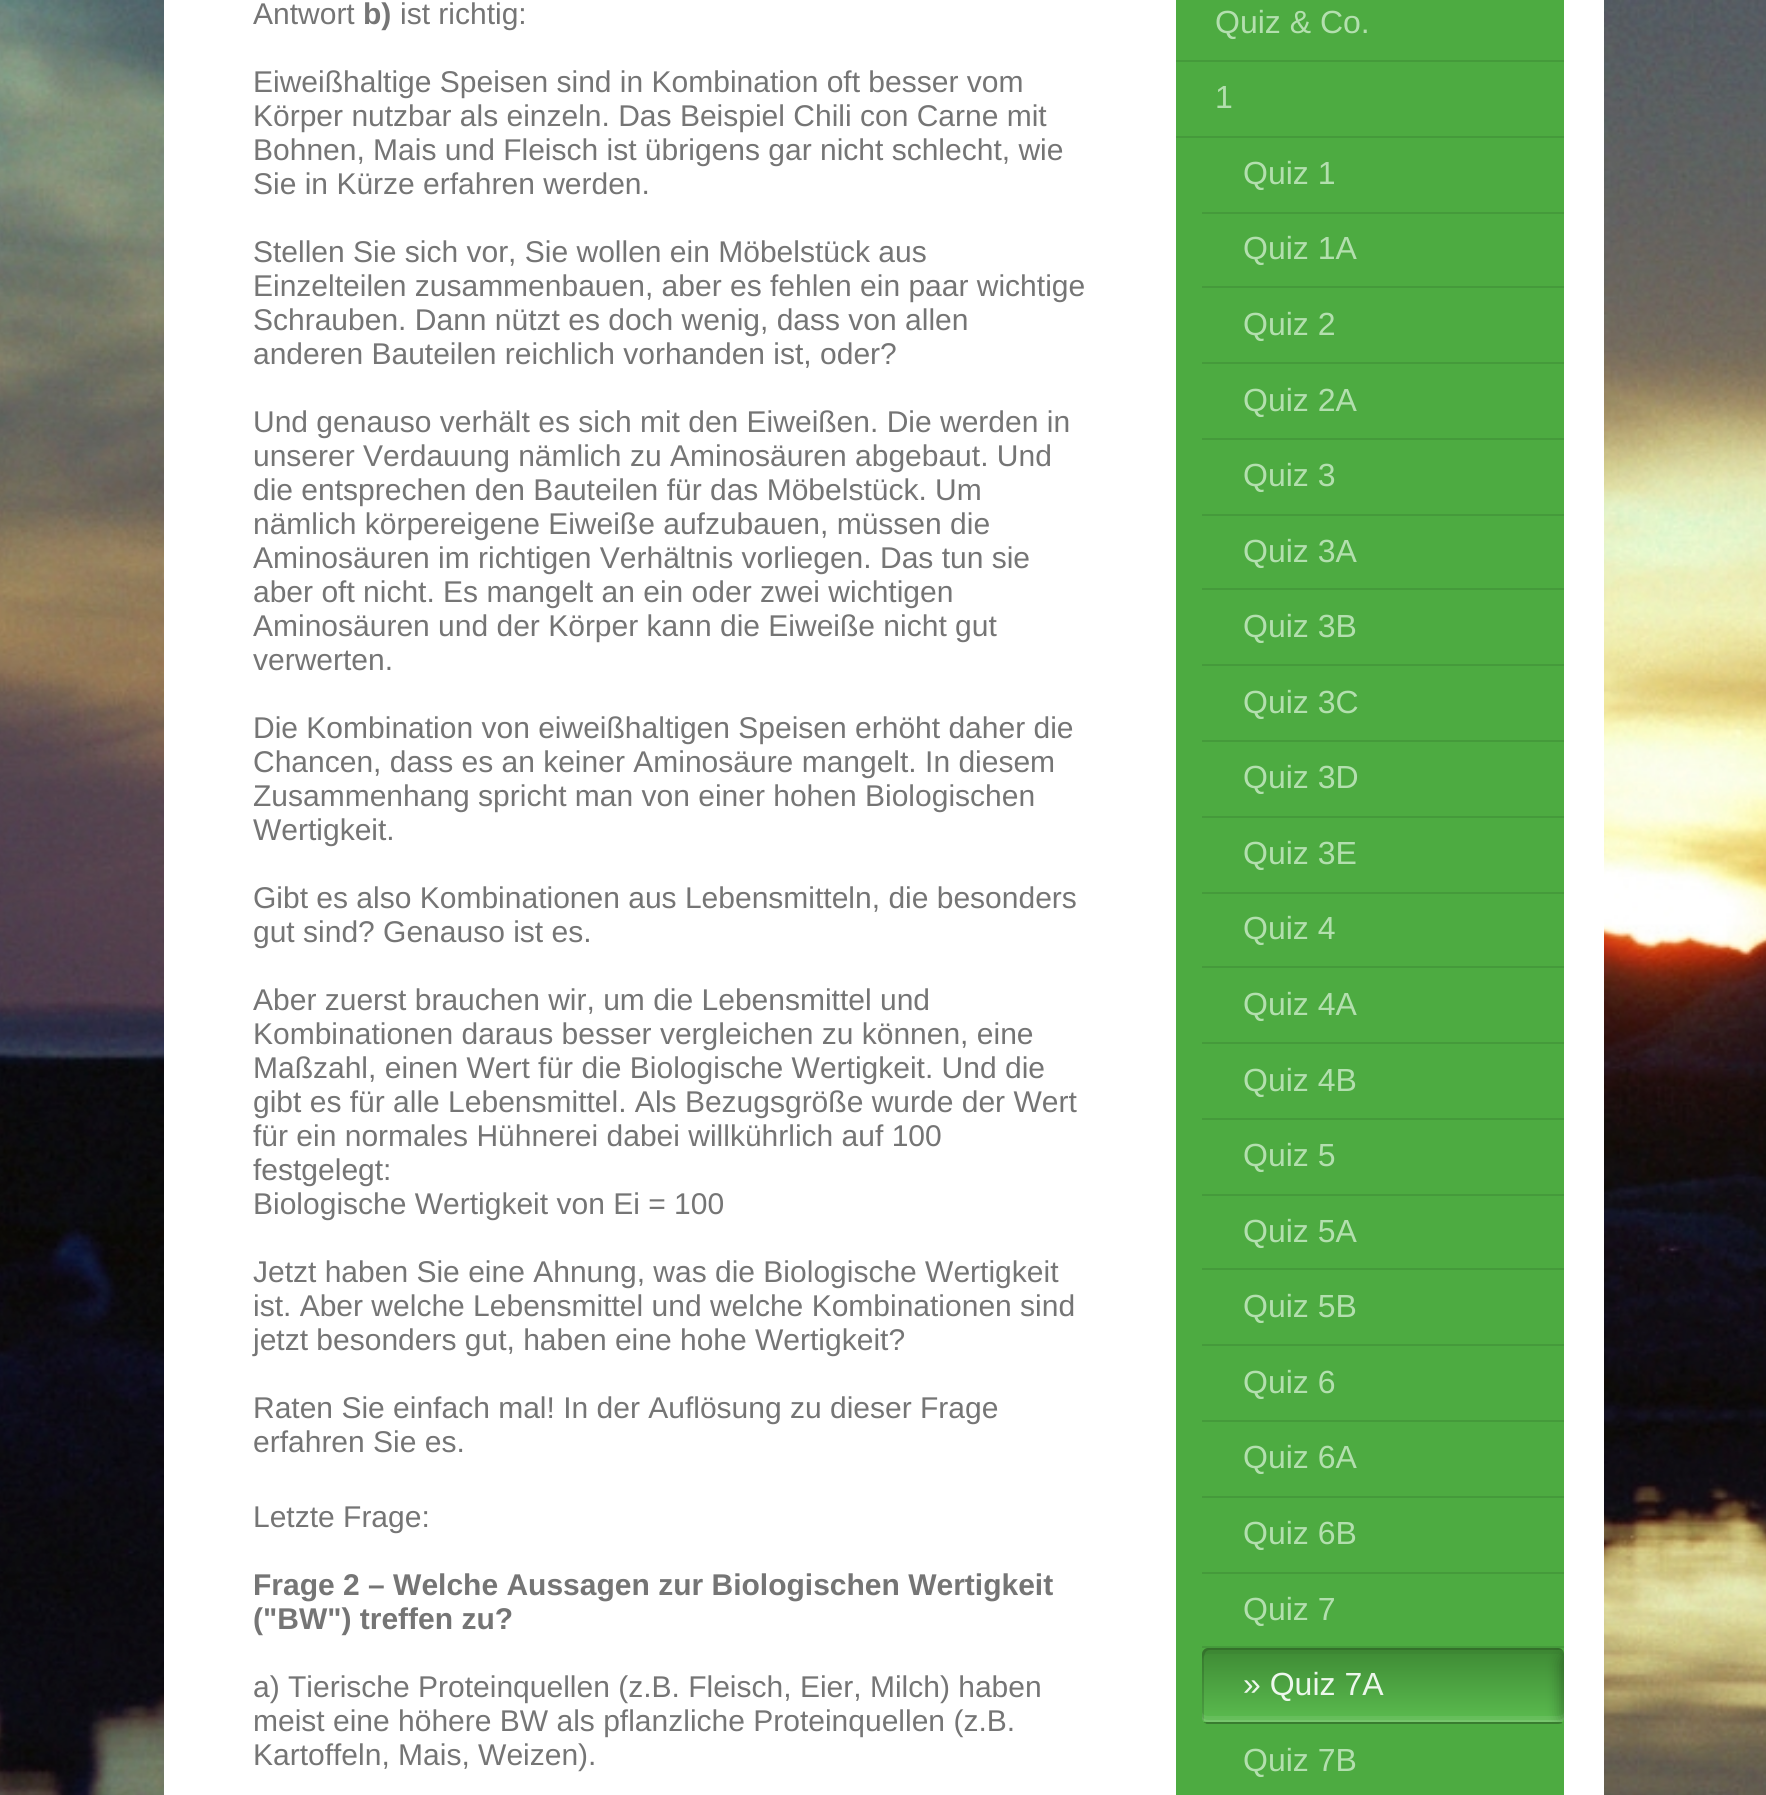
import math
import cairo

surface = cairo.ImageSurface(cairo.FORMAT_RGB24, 1766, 1795)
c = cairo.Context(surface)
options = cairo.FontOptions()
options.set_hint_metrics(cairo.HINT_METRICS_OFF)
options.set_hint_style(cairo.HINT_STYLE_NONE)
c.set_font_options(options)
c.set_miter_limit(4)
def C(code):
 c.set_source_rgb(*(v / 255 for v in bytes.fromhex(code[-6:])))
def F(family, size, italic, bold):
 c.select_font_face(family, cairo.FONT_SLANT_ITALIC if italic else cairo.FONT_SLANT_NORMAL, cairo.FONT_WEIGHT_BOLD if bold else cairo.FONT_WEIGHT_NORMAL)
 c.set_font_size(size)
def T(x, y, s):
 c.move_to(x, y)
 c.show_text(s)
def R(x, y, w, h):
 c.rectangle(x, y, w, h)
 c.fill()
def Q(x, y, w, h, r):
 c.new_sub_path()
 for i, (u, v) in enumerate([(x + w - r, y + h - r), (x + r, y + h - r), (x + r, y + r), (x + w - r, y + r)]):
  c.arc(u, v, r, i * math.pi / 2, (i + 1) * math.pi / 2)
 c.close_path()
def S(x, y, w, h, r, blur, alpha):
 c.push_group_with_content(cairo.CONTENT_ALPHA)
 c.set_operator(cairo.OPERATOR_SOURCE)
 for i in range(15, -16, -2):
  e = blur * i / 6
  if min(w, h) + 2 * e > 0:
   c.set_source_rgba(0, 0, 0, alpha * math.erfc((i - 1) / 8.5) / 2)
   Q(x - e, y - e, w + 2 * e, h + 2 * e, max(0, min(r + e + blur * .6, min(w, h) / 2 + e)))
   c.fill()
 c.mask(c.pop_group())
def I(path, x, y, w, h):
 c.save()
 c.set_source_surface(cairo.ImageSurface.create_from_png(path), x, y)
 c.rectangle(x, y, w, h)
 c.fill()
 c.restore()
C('ffffff')
c.paint()
I('1.png',0,0,1766,1795)
C('ffffff')
R(164,0,1440,1795)
F('Liberation Sans',30,0,0)
C('757575')
T(253,24,'Antwort')
F('Liberation Sans',30,0,1)
T(363,24,'b)')
F('Liberation Sans',30,0,0)
T(400,24,'ist richtig:')
T(253,92,'Eiweißhaltige Speisen sind in Kombination oft besser vom')
T(253,126,'Körper nutzbar als einzeln. Das Beispiel Chili con Carne mit')
T(253,160,'Bohnen, Mais und Fleisch ist übrigens gar nicht schlecht, wie')
T(253,194,'Sie in Kürze erfahren werden.')
T(253,262,'Stellen Sie sich vor, Sie wollen ein Möbelstück aus')
T(253,296,'Einzelteilen zusammenbauen, aber es fehlen ein paar wichtige')
T(253,330,'Schrauben. Dann nützt es doch wenig, dass von allen')
T(253,364,'anderen Bauteilen reichlich vorhanden ist, oder?')
T(253,432,'Und genauso verhält es sich mit den Eiweißen. Die werden in')
T(253,466,'unserer Verdauung nämlich zu Aminosäuren abgebaut. Und')
T(253,500,'die entsprechen den Bauteilen für das Möbelstück. Um')
T(253,534,'nämlich körpereigene Eiweiße aufzubauen, müssen die')
T(253,568,'Aminosäuren im richtigen Verhältnis vorliegen. Das tun sie')
T(253,602,'aber oft nicht. Es mangelt an ein oder zwei wichtigen')
T(253,636,'Aminosäuren und der Körper kann die Eiweiße nicht gut')
T(253,670,'verwerten.')
T(253,738,'Die Kombination von eiweißhaltigen Speisen erhöht daher die')
T(253,772,'Chancen, dass es an keiner Aminosäure mangelt. In diesem')
T(253,806,'Zusammenhang spricht man von einer hohen Biologischen')
T(253,840,'Wertigkeit.')
T(253,908,'Gibt es also Kombinationen aus Lebensmitteln, die besonders')
T(253,942,'gut sind? Genauso ist es.')
T(253,1010,'Aber zuerst brauchen wir, um die Lebensmittel und')
T(253,1044,'Kombinationen daraus besser vergleichen zu können, eine')
T(253,1078,'Maßzahl, einen Wert für die Biologische Wertigkeit. Und die')
T(253,1112,'gibt es für alle Lebensmittel. Als Bezugsgröße wurde der Wert')
T(253,1146,'für ein normales Hühnerei dabei willkührlich auf 100')
T(253,1180,'festgelegt:')
T(253,1214,'Biologische Wertigkeit von Ei = 100')
T(253,1282,'Jetzt haben Sie eine Ahnung, was die Biologische Wertigkeit')
T(253,1316,'ist. Aber welche Lebensmittel und welche Kombinationen sind')
T(253,1350,'jetzt besonders gut, haben eine hohe Wertigkeit?')
T(253,1418,'Raten Sie einfach mal! In der Auflösung zu dieser Frage')
T(253,1452,'erfahren Sie es.')
T(253,1527,'Letzte Frage:')
F('Liberation Sans',30,0,1)
T(253,1595,'Frage 2 – Welche Aussagen zur Biologischen Wertigkeit')
T(253,1629,'("BW") treffen zu?')
F('Liberation Sans',30,0,0)
T(253,1697,'a) Tierische Proteinquellen (z.B. Fleisch, Eier, Milch) haben')
T(253,1731,'meist eine höhere BW als pflanzliche Proteinquellen (z.B.')
T(253,1765,'Kartoffeln, Mais, Weizen).')
C('4dab41')
R(1176,0,388,1795)
C('459a3b')
R(1176,60,388,2)
F('Liberation Sans',32,0,0)
C('b3dfae')
T(1215,33,'Quiz & Co.')
C('459a3b')
R(1176,136,388,2)
C('b3dfae')
T(1215,108,'1')
C('459a3b')
R(1202,212,362,2)
C('b3dfae')
T(1243,184,'Quiz 1')
C('459a3b')
R(1202,286,362,2)
C('b3dfae')
T(1243,259,'Quiz 1A')
C('459a3b')
R(1202,362,362,2)
C('b3dfae')
T(1243,335,'Quiz 2')
C('459a3b')
R(1202,438,362,2)
C('b3dfae')
T(1243,411,'Quiz 2A')
C('459a3b')
R(1202,514,362,2)
C('b3dfae')
T(1243,486,'Quiz 3')
C('459a3b')
R(1202,588,362,2)
C('b3dfae')
T(1243,562,'Quiz 3A')
C('459a3b')
R(1202,664,362,2)
C('b3dfae')
T(1243,637,'Quiz 3B')
C('459a3b')
R(1202,740,362,2)
C('b3dfae')
T(1243,713,'Quiz 3C')
C('459a3b')
R(1202,816,362,2)
C('b3dfae')
T(1243,788,'Quiz 3D')
C('459a3b')
R(1202,892,362,2)
C('b3dfae')
T(1243,864,'Quiz 3E')
C('459a3b')
R(1202,966,362,2)
C('b3dfae')
T(1243,939,'Quiz 4')
C('459a3b')
R(1202,1042,362,2)
C('b3dfae')
T(1243,1015,'Quiz 4A')
C('459a3b')
R(1202,1118,362,2)
C('b3dfae')
T(1243,1091,'Quiz 4B')
C('459a3b')
R(1202,1194,362,2)
C('b3dfae')
T(1243,1166,'Quiz 5')
C('459a3b')
R(1202,1268,362,2)
C('b3dfae')
T(1243,1242,'Quiz 5A')
C('459a3b')
R(1202,1344,362,2)
C('b3dfae')
T(1243,1317,'Quiz 5B')
C('459a3b')
R(1202,1420,362,2)
C('b3dfae')
T(1243,1393,'Quiz 6')
C('459a3b')
R(1202,1496,362,2)
C('b3dfae')
T(1243,1468,'Quiz 6A')
C('459a3b')
R(1202,1572,362,2)
C('b3dfae')
T(1243,1544,'Quiz 6B')
C('459a3b')
R(1202,1646,362,2)
C('b3dfae')
T(1243,1620,'Quiz 7')
c.save()
Q(1202,1648,362,76,6)
c.clip()
gradient = cairo.LinearGradient(1202,1722,1202,1648)
gradient.add_color_stop_rgba(0,0.357,0.737,0.31,1)
gradient.add_color_stop_rgba(1,0.243,0.541,0.204,1)
c.set_source(gradient)
c.new_path()
c.move_to(1208,1648)
c.line_to(1558,1648)
c.curve_to(1561.5,1648,1564,1650.5,1564,1654)
c.line_to(1564,1722)
c.line_to(1202,1722)
c.line_to(1202,1654)
c.curve_to(1202,1650.5,1204.5,1648,1208,1648)
c.close_path()
c.fill()
gradient = cairo.LinearGradient(1202,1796,1202,1722)
gradient.add_color_stop_rgba(0,0.357,0.737,0.31,1)
gradient.add_color_stop_rgba(1,0.243,0.541,0.204,1)
c.set_source(gradient)
R(1202,1722,362,2)
c.restore()
c.set_source_rgba(0,0,0,0.15)
c.new_path()
c.move_to(1210,1650)
c.line_to(1560,1650)
c.curve_to(1561,1650,1562,1650,1563,1651)
c.curve_to(1562,1649,1560,1648,1558,1648)
c.line_to(1208,1648)
c.curve_to(1205,1648,1202,1651,1202,1654)
c.line_to(1202,1718)
c.curve_to(1202,1719,1203,1720,1204,1721)
c.line_to(1204,1667)
c.curve_to(1204,1663,1202,1650,1210,1650)
c.close_path()
c.fill()
c.set_source_rgba(0,0,0,0.04)
c.new_path()
c.move_to(1208,1654)
c.line_to(1558,1654)
c.curve_to(1561,1654,1564,1657,1564,1660)
c.line_to(1564,1654)
c.curve_to(1564,1651,1561,1648,1558,1648)
c.line_to(1208,1648)
c.curve_to(1205,1648,1202,1651,1202,1654)
c.line_to(1202,1660)
c.curve_to(1202,1657,1205,1654,1208,1654)
c.close_path()
c.fill()
c.set_source_rgba(1,1,1,0.08)
c.new_path()
c.move_to(1202,1712)
c.line_to(1202,1718)
c.curve_to(1202,1720,1205,1722,1208,1722)
c.line_to(1558,1722)
c.curve_to(1561,1722,1564,1720,1564,1718)
c.line_to(1564,1712)
c.curve_to(1564,1714,1561,1716,1558,1716)
c.line_to(1208,1716)
c.curve_to(1205,1716,1202,1714,1202,1712)
c.close_path()
c.fill()
c.set_source_rgba(1,1,1,0.1)
c.new_path()
c.move_to(1202,1716)
c.curve_to(1202,1720,1204,1722,1208,1722)
c.line_to(1558,1722)
c.curve_to(1562,1722,1564,1720,1564,1716)
c.curve_to(1564,1718,1561,1720,1558,1720)
c.line_to(1208,1720)
c.curve_to(1205,1720,1202,1718,1202,1716)
c.close_path()
c.fill()
c.set_source_rgba(0,0,0,0.1)
R(1206,1722,356,2)
C('edf7ec')
T(1243,1695,'» Quiz 7A')
c.save()
c.new_path()
c.move_to(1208,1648)
c.line_to(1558,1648)
c.curve_to(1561.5,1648,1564,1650.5,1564,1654)
c.line_to(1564,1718)
c.curve_to(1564,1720,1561.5,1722,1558,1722)
c.line_to(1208,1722)
c.curve_to(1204.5,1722,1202,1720,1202,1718)
c.line_to(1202,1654)
c.curve_to(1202,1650.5,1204.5,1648,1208,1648)
c.close_path()
c.clip()
C('000000')
S(1560,1652,32,74,16,7,.3)
c.restore()
C('b3dfae')
T(1243,1771,'Quiz 7B')
surface.write_to_png('o.png')
